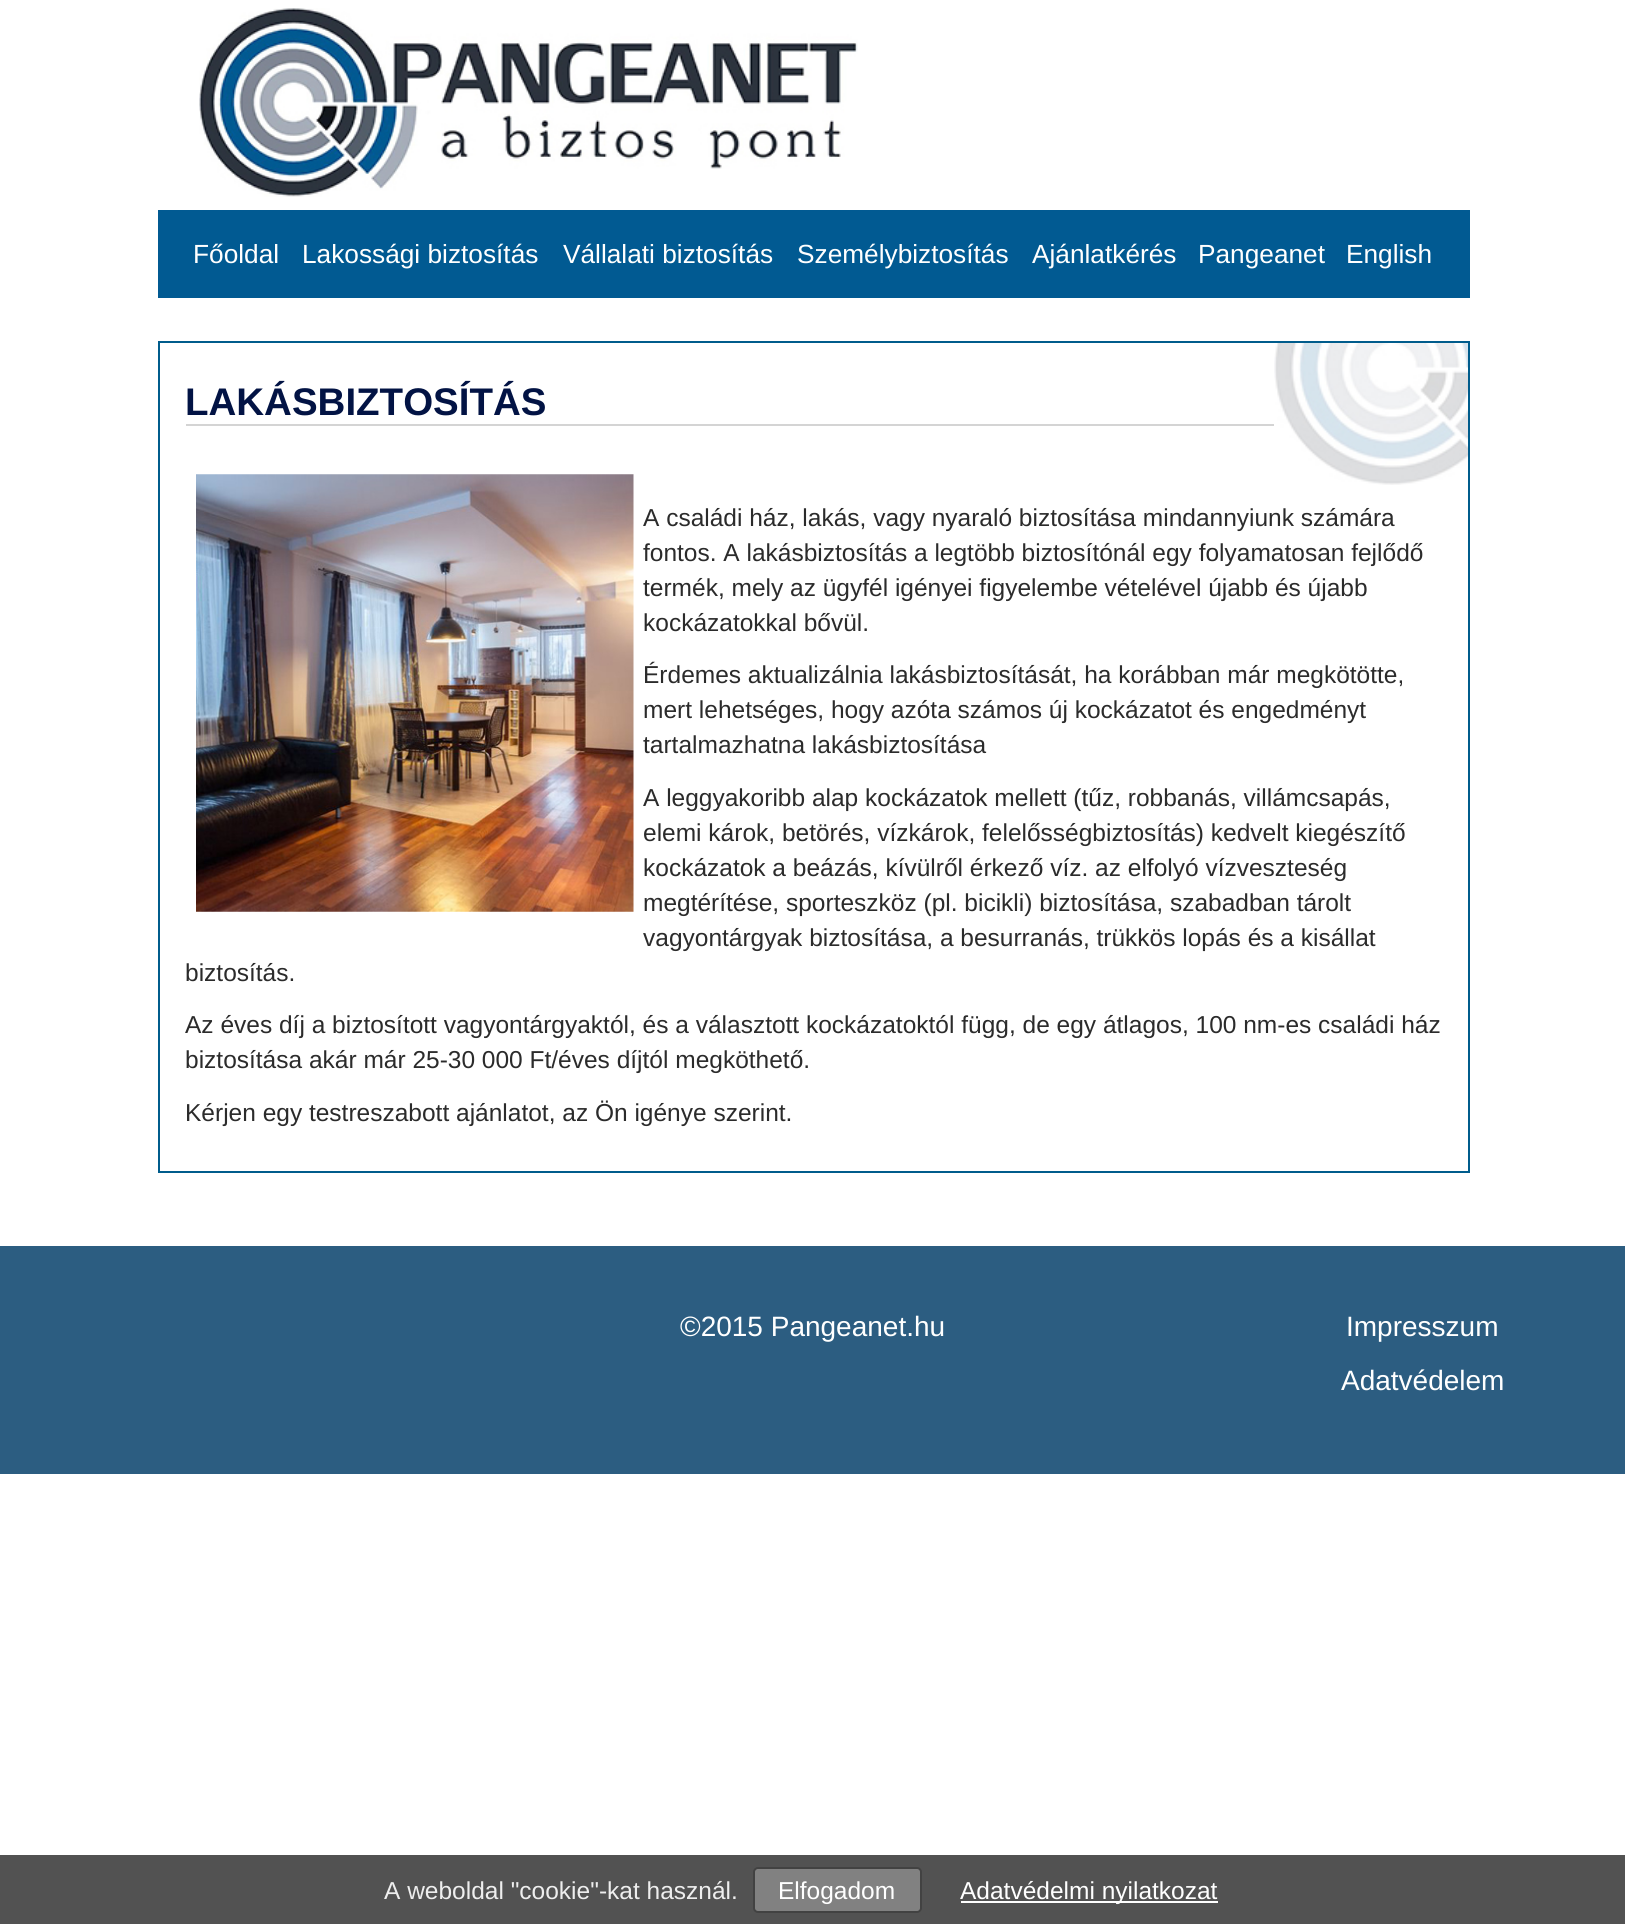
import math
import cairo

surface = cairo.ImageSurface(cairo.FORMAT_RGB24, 1625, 1924)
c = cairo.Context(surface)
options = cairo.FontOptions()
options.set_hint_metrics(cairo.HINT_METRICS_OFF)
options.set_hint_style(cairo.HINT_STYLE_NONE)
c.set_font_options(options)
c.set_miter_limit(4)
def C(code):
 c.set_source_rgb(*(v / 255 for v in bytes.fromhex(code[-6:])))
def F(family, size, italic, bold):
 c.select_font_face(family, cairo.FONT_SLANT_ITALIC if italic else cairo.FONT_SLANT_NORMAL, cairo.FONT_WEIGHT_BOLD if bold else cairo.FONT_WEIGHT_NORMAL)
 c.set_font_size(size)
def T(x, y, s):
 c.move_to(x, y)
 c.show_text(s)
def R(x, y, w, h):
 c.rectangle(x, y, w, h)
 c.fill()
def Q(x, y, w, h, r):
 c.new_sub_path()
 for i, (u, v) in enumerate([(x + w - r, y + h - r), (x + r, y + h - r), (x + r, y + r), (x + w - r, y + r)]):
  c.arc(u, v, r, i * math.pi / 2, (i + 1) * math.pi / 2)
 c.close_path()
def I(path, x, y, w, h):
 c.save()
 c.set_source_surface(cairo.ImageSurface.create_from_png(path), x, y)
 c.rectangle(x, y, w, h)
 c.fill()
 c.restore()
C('ffffff')
c.paint()
I('1.png',199,8,659,189)
C('015a92')
R(158,210,1312,88)
F('Liberation Sans',26.25,0,0)
C('ffffff')
T(193,263,'Főoldal')
T(302,263,'Lakossági biztosítás')
T(563,263,'Vállalati biztosítás')
T(797,263,'Személybiztosítás')
T(1032,263,'Ajánlatkérés')
T(1198,263,'Pangeanet')
T(1346,263,'English')
I('2.png',1274,343,194,142)
c.rectangle(159,342,1310,830)
C('005c8c')
c.stroke()
C('d4d4d4')
R(186,424,1088,2)
F('Liberation Sans',38.5,0,1)
C('021344')
T(185,415,'LAKÁSBIZTOSÍTÁS')
I('3.png',196,474,438,438)
F('Liberation Sans',24.5,0,0)
C('2b2b2b')
T(643,526,'A családi ház, lakás, vagy nyaraló biztosítása mindannyiunk számára')
T(643,561,'fontos. A lakásbiztosítás a legtöbb biztosítónál egy folyamatosan fejlődő')
T(643,596,'termék, mely az ügyfél igényei figyelembe vételével újabb és újabb')
T(643,631,'kockázatokkal bővül.')
T(643,683,'Érdemes aktualizálnia lakásbiztosítását, ha korábban már megkötötte,')
T(643,718,'mert lehetséges, hogy azóta számos új kockázatot és engedményt')
T(643,753,'tartalmazhatna lakásbiztosítása')
T(643,806,'A leggyakoribb alap kockázatok mellett (tűz, robbanás, villámcsapás,')
T(643,841,'elemi károk, betörés, vízkárok, felelősségbiztosítás) kedvelt kiegészítő')
T(643,876,'kockázatok a beázás, kívülről érkező víz. az elfolyó vízveszteség')
T(643,911,'megtérítése, sporteszköz (pl. bicikli) biztosítása, szabadban tárolt')
T(643,946,'vagyontárgyak biztosítása, a besurranás, trükkös lopás és a kisállat')
T(185,981,'biztosítás.')
T(185,1033,'Az éves díj a biztosított vagyontárgyaktól, és a választott kockázatoktól függ, de egy átlagos, 100 nm-es családi ház')
T(185,1068,'biztosítása akár már 25-30 000 Ft/éves díjtól megköthető.')
T(185,1121,'Kérjen egy testreszabott ajánlatot, az Ön igénye szerint.')
C('2c5d81')
R(0,1246,1625,228)
F('Liberation Sans',28,0,0)
C('ffffff')
T(680,1336,'©2015 Pangeanet.hu')
T(1346,1336,'Impresszum')
T(1341,1390,'Adatvédelem')
C('525252')
R(0,1855,1625,69)
F('Liberation Sans',24.5,0,0)
C('eeeeee')
T(384,1899,'A weboldal "cookie"-kat használ.')
C('818181')
Q(754,1868,167,44,4)
c.fill_preserve()
C('424242')
c.stroke()
C('ffffff')
T(778,1899,'Elfogadom')
R(961,1901,257,2)
T(960,1899,'Adatvédelmi nyilatkozat')
surface.write_to_png('o.png')
